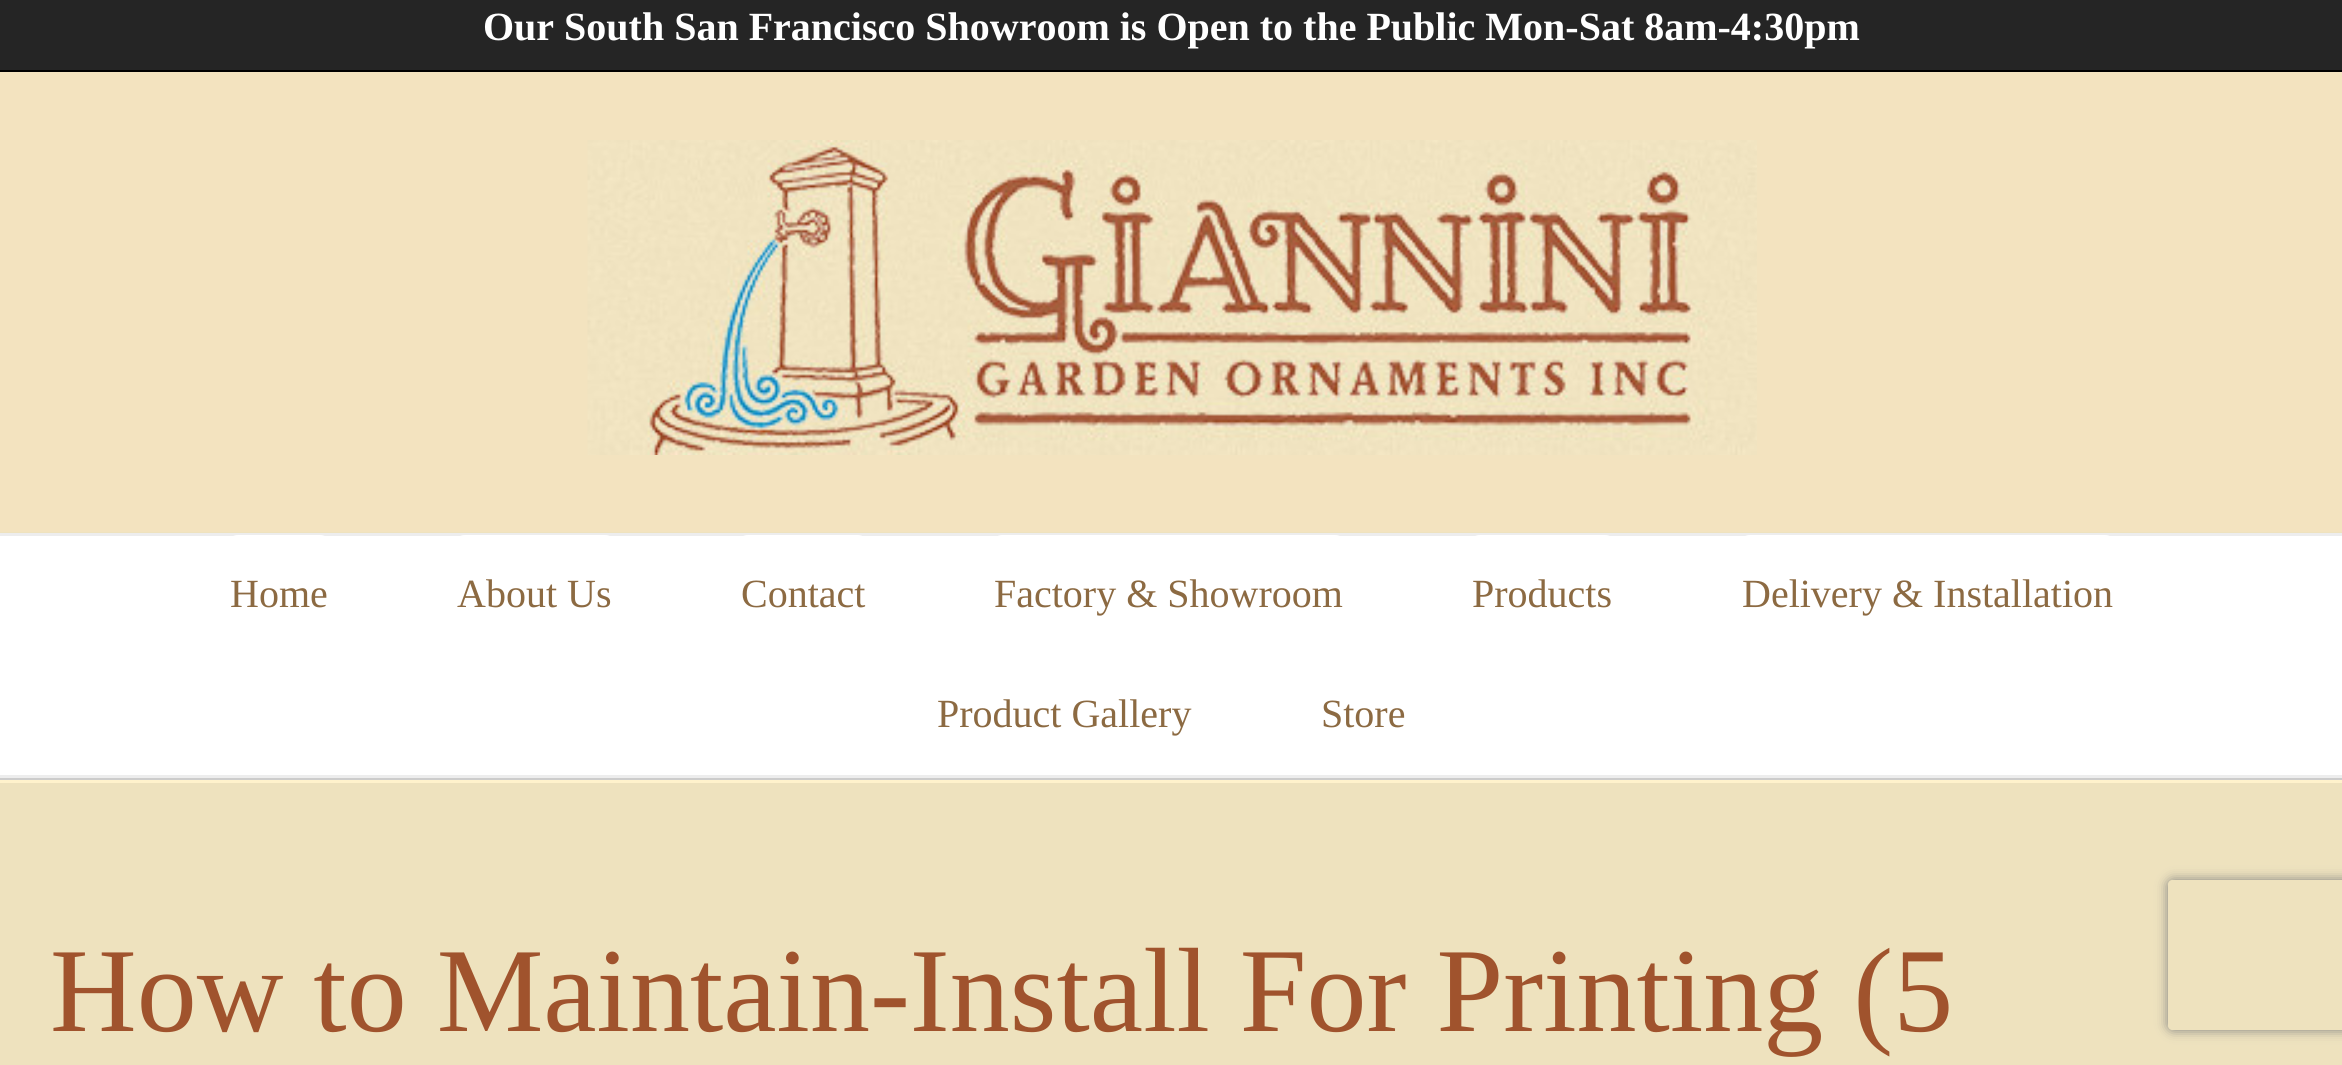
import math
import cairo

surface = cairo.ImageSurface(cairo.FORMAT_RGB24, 2342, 1065)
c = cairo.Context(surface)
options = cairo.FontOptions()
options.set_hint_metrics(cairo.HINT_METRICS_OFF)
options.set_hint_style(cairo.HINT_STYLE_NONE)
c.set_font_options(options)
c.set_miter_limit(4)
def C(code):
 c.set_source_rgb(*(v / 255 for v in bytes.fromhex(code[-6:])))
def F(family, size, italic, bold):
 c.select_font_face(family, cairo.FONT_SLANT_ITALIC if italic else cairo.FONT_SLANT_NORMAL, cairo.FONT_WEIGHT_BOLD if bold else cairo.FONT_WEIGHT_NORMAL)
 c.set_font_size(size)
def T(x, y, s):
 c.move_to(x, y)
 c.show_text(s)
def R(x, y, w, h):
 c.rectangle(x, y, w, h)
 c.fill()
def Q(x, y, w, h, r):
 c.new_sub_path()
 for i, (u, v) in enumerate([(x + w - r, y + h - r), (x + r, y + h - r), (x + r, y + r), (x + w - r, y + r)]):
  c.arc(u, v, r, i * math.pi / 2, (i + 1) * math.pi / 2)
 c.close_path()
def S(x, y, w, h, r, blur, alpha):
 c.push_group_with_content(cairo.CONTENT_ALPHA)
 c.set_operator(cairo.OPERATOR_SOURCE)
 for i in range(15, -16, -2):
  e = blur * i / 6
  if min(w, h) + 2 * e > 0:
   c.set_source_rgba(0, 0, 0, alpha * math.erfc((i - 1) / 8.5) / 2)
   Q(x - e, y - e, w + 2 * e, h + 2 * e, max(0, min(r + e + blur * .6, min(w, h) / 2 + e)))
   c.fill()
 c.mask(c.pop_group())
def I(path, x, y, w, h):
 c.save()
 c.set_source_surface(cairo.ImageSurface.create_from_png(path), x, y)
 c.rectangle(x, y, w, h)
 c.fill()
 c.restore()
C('ffffff')
c.paint()
C('252525')
R(0,0,2342,70)
C('000000')
R(0,70,2342,2)
F('Liberation Serif',40,0,1)
C('ffffff')
T(483,40,'Our South San Francisco Showroom is Open to the Public Mon-Sat 8am-4:30pm')
C('eee2be')
R(0,532,2342,1)
C('f3e3bf')
R(0,72,2342,460)
I('1.png',587,140,1170,315)
C('cccccc')
R(0,778,2342,2)
C('ededed')
R(0,533,2342,3)
R(0,775,2342,3)
C('ffffff')
c.set_fill_rule(cairo.FILL_RULE_EVEN_ODD)
c.new_path()
c.move_to(238,535)
c.line_to(320,535)
c.curve_to(326,535,330,539,330,545)
c.line_to(330,645)
c.curve_to(330,651,326,655,320,655)
c.line_to(238,655)
c.curve_to(232,655,228,651,228,645)
c.line_to(228,545)
c.curve_to(228,539,232,535,238,535)
c.close_path()
c.move_to(238,538)
c.line_to(320,538)
c.curve_to(324,538,328,541,328,545)
c.line_to(328,645)
c.curve_to(328,651,324,655,320,655)
c.line_to(238,655)
c.curve_to(233,655,230,651,230,645)
c.line_to(230,545)
c.curve_to(230,541,233,538,238,538)
c.close_path()
c.fill()
F('Liberation Serif',40,0,0)
C('8c6a42')
T(230,607,'Home')
C('ffffff')
c.new_path()
c.move_to(465,535)
c.line_to(605,535)
c.curve_to(611,535,615,539,615,545)
c.line_to(615,645)
c.curve_to(615,651,611,655,605,655)
c.line_to(465,655)
c.curve_to(459,655,455,651,455,645)
c.line_to(455,545)
c.curve_to(455,539,459,535,465,535)
c.close_path()
c.move_to(465,538)
c.line_to(605,538)
c.curve_to(609,538,612,541,612,545)
c.line_to(612,645)
c.curve_to(612,651,609,655,605,655)
c.line_to(465,655)
c.curve_to(461,655,458,651,458,645)
c.line_to(458,545)
c.curve_to(458,541,461,538,465,538)
c.close_path()
c.fill()
C('8c6a42')
T(457,607,'About Us')
C('ffffff')
c.new_path()
c.move_to(748,535)
c.line_to(858,535)
c.curve_to(863,535,868,539,868,545)
c.line_to(868,645)
c.curve_to(868,651,863,655,858,655)
c.line_to(748,655)
c.curve_to(742,655,738,651,738,645)
c.line_to(738,545)
c.curve_to(738,539,742,535,748,535)
c.close_path()
c.move_to(748,538)
c.line_to(858,538)
c.curve_to(862,538,865,541,865,545)
c.line_to(865,645)
c.curve_to(865,651,862,655,858,655)
c.line_to(748,655)
c.curve_to(743,655,740,651,740,645)
c.line_to(740,545)
c.curve_to(740,541,743,538,748,538)
c.close_path()
c.fill()
C('8c6a42')
T(741,607,'Contact')
C('ffffff')
c.new_path()
c.move_to(1002,535)
c.line_to(1335,535)
c.curve_to(1341,535,1345,539,1345,545)
c.line_to(1345,645)
c.curve_to(1345,651,1341,655,1335,655)
c.line_to(1002,655)
c.curve_to(997,655,992,651,992,645)
c.line_to(992,545)
c.curve_to(992,539,997,535,1002,535)
c.close_path()
c.move_to(1002,538)
c.line_to(1335,538)
c.curve_to(1339,538,1342,541,1342,545)
c.line_to(1342,645)
c.curve_to(1342,651,1339,655,1335,655)
c.line_to(1002,655)
c.curve_to(998,655,995,651,995,645)
c.line_to(995,545)
c.curve_to(995,541,998,538,1002,538)
c.close_path()
c.fill()
C('8c6a42')
T(994,607,'Factory & Showroom')
C('ffffff')
c.new_path()
c.move_to(1480,535)
c.line_to(1605,535)
c.curve_to(1611,535,1615,539,1615,545)
c.line_to(1615,645)
c.curve_to(1615,651,1611,655,1605,655)
c.line_to(1480,655)
c.curve_to(1474,655,1470,651,1470,645)
c.line_to(1470,545)
c.curve_to(1470,539,1474,535,1480,535)
c.close_path()
c.move_to(1480,538)
c.line_to(1605,538)
c.curve_to(1609,538,1612,541,1612,545)
c.line_to(1612,645)
c.curve_to(1612,651,1609,655,1605,655)
c.line_to(1480,655)
c.curve_to(1476,655,1472,651,1472,645)
c.line_to(1472,545)
c.curve_to(1472,541,1476,538,1480,538)
c.close_path()
c.fill()
C('8c6a42')
T(1472,607,'Products')
C('ffffff')
c.new_path()
c.move_to(1750,535)
c.line_to(2105,535)
c.curve_to(2111,535,2115,539,2115,545)
c.line_to(2115,645)
c.curve_to(2115,651,2111,655,2105,655)
c.line_to(1750,655)
c.curve_to(1744,655,1740,651,1740,645)
c.line_to(1740,545)
c.curve_to(1740,539,1744,535,1750,535)
c.close_path()
c.move_to(1750,538)
c.line_to(2105,538)
c.curve_to(2109,538,2112,541,2112,545)
c.line_to(2112,645)
c.curve_to(2112,651,2109,655,2105,655)
c.line_to(1750,655)
c.curve_to(1746,655,1742,651,1742,645)
c.line_to(1742,545)
c.curve_to(1742,541,1746,538,1750,538)
c.close_path()
c.fill()
C('8c6a42')
T(1742,607,'Delivery & Installation')
T(937,727,'Product Gallery')
T(1321,727,'Store')
C('eee2be')
R(0,783,2342,282)
C('fff2cc')
R(0,780,2342,3)
F('Liberation Serif',120,0,0)
C('a0532d')
T(50,1031,'How to Maintain-Install For Printing (5')
c.save()
c.new_path()
c.move_to(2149,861)
c.line_to(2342,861)
c.line_to(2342,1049)
c.line_to(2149,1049)
c.close_path()
c.move_to(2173,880)
c.line_to(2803,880)
c.curve_to(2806,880,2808,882,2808,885)
c.line_to(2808,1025)
c.curve_to(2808,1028,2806,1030,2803,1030)
c.line_to(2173,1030)
c.curve_to(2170,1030,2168,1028,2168,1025)
c.line_to(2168,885)
c.curve_to(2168,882,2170,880,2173,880)
c.close_path()
c.clip()
C('808080')
S(2168,880,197,150,5,6,1)
c.restore()
surface.write_to_png('o.png')
